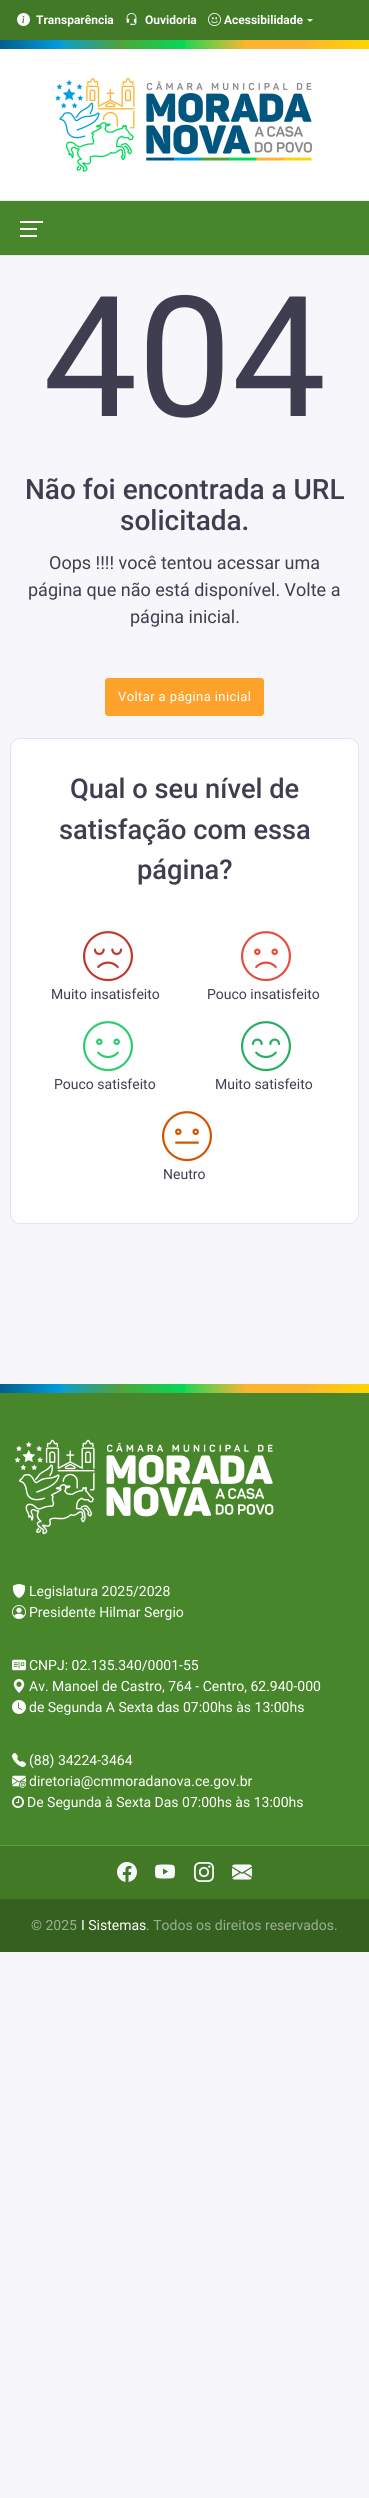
import math
import cairo

surface = cairo.ImageSurface(cairo.FORMAT_RGB24, 369, 2498)
c = cairo.Context(surface)
options = cairo.FontOptions()
options.set_hint_metrics(cairo.HINT_METRICS_OFF)
options.set_hint_style(cairo.HINT_STYLE_NONE)
c.set_font_options(options)
c.set_miter_limit(4)
def C(code):
 c.set_source_rgb(*(v / 255 for v in bytes.fromhex(code[-6:])))
def F(family, size, italic, bold):
 c.select_font_face(family, cairo.FONT_SLANT_ITALIC if italic else cairo.FONT_SLANT_NORMAL, cairo.FONT_WEIGHT_BOLD if bold else cairo.FONT_WEIGHT_NORMAL)
 c.set_font_size(size)
def T(x, y, s):
 c.move_to(x, y)
 c.show_text(s)
def L(x, y, s, letter, word):
 c.move_to(x, y)
 for ch in s:
  c.show_text(ch)
  c.rel_move_to(letter + word * (ch == ' '), 0)
def R(x, y, w, h):
 c.rectangle(x, y, w, h)
 c.fill()
def Q(x, y, w, h, r):
 c.new_sub_path()
 for i, (u, v) in enumerate([(x + w - r, y + h - r), (x + r, y + h - r), (x + r, y + r), (x + w - r, y + r)]):
  c.arc(u, v, r, i * math.pi / 2, (i + 1) * math.pi / 2)
 c.close_path()
def S(x, y, w, h, r, blur, alpha):
 c.push_group_with_content(cairo.CONTENT_ALPHA)
 c.set_operator(cairo.OPERATOR_SOURCE)
 for i in range(15, -16, -2):
  e = blur * i / 6
  if min(w, h) + 2 * e > 0:
   c.set_source_rgba(0, 0, 0, alpha * math.erfc((i - 1) / 8.5) / 2)
   Q(x - e, y - e, w + 2 * e, h + 2 * e, max(0, min(r + e + blur * .6, min(w, h) / 2 + e)))
   c.fill()
 c.mask(c.pop_group())
def I(path, x, y, w, h):
 c.save()
 c.set_source_surface(cairo.ImageSurface.create_from_png(path), x, y)
 c.rectangle(x, y, w, h)
 c.fill()
 c.restore()
C('f7f7fb')
c.paint()
C('ffffff')
R(0,49,369,152)
C('417927')
R(0,0,369,40)
I('1.png',17,13,13,13)
F('Roboto',12,0,1)
C('ffffff')
T(36,24,'Transparência')
I('2.png',126,13,11,13)
T(145,24,'Ouvidoria')
I('3.png',208,13,13,13)
T(224,24,'Acessibilidade')
c.new_path()
c.move_to(307,19)
c.line_to(313,19)
c.line_to(310,22)
c.close_path()
c.fill()
I('4.png',0,40,62,9)
I('5.png',62,40,61,9)
I('6.png',123,40,62,9)
I('7.png',185,40,61,9)
C('ffb430')
R(246,40,62,9)
I('8.png',308,40,61,9)
I('9.png',55,78,257,94)
C('000000')
S(0,201,369,54,0,.5,.3)
C('48862b')
R(0,201,369,54)
C('ffffff')
R(20,228,17,2)
R(20,221,23,2)
R(20,235,17,2)
F('Roboto',168,0,0)
C('3f3e50')
T(43,416,'404')
F('Roboto Medium',28,0,0)
T(25,499,'Não foi encontrada a URL')
T(120,530,'solicitada.')
F('Roboto',18,0,0)
T(49,569,'Oops !!!! você tentou acessar uma')
T(28,596,'página que não está disponível. Volte a')
T(130,623,'página inicial.')
C('ffa22b')
Q(105.5,678.5,158,37,2.5)
c.fill_preserve()
c.set_line_width(1)
c.stroke()
F('Roboto',13,0,0)
C('ffffff')
L(118,701,'Voltar a página inicial',.4,0)
Q(10.5,738.5,348,485,9.5)
c.fill_preserve()
C('e0e5f3')
c.stroke()
F('Roboto Medium',27.25,0,0)
C('3f3e50')
T(70,798,'Qual o seu nível de')
T(59,839,'satisfação com essa')
T(137,879,'página?')
I('10.png',83,931,50,51)
F('Roboto',14,0,0)
T(51,999,'Muito insatisfeito')
I('11.png',241,931,50,51)
T(207,999,'Pouco insatisfeito')
I('12.png',83,1021,50,51)
T(54,1089,'Pouco satisfeito')
I('13.png',241,1021,50,51)
T(215,1089,'Muito satisfeito')
I('14.png',162,1111,50,51)
T(163,1179,'Neutro')
I('15.png',0,1384,62,9)
I('16.png',62,1384,61,9)
I('17.png',123,1384,62,9)
I('18.png',185,1384,61,9)
C('ffb430')
R(246,1384,62,9)
I('19.png',308,1384,61,9)
C('48862b')
R(0,1393,369,452)
C('57a133')
R(0,1845,369,1)
I('20.png',14,1439,260,96)
I('21.png',12,1584,14,14)
C('ffffff')
T(29,1596,'Legislatura 2025/2028')
I('22.png',12,1605,14,14)
T(29,1617,'Presidente Hilmar Sergio')
I('23.png',12,1659,14,12)
T(29,1670,'CNPJ: 02.135.340/0001-55')
I('24.png',13,1679,12,14)
T(29,1691,'Av. Manoel de Castro, 764 - Centro, 62.940-000')
I('25.png',12,1700,14,14)
T(29,1712,'de Segunda A Sexta das 07:00hs às 13:00hs')
I('26.png',12,1753,14,14)
T(29,1765,'(88) 34224-3464')
I('27.png',12,1775,14,13)
T(29,1786,'diretoria@cmmoradanova.ce.gov.br')
I('28.png',12,1796,12,12)
T(27,1807,'De Segunda à Sexta Das 07:00hs às 13:00hs')
C('417927')
R(0,1846,369,53)
I('29.png',117,1862,20,20)
I('30.png',155,1864,20,15)
I('31.png',194,1862,20,20)
I('32.png',232,1864,20,16)
C('34611f')
R(0,1899,369,53)
C('9ab08f')
T(31,1930,'© 2025')
C('ffffff')
T(81,1930,'I Sistemas')
C('9ab08f')
T(146,1930,'. Todos os direitos reservados.')
surface.write_to_png('o.png')
